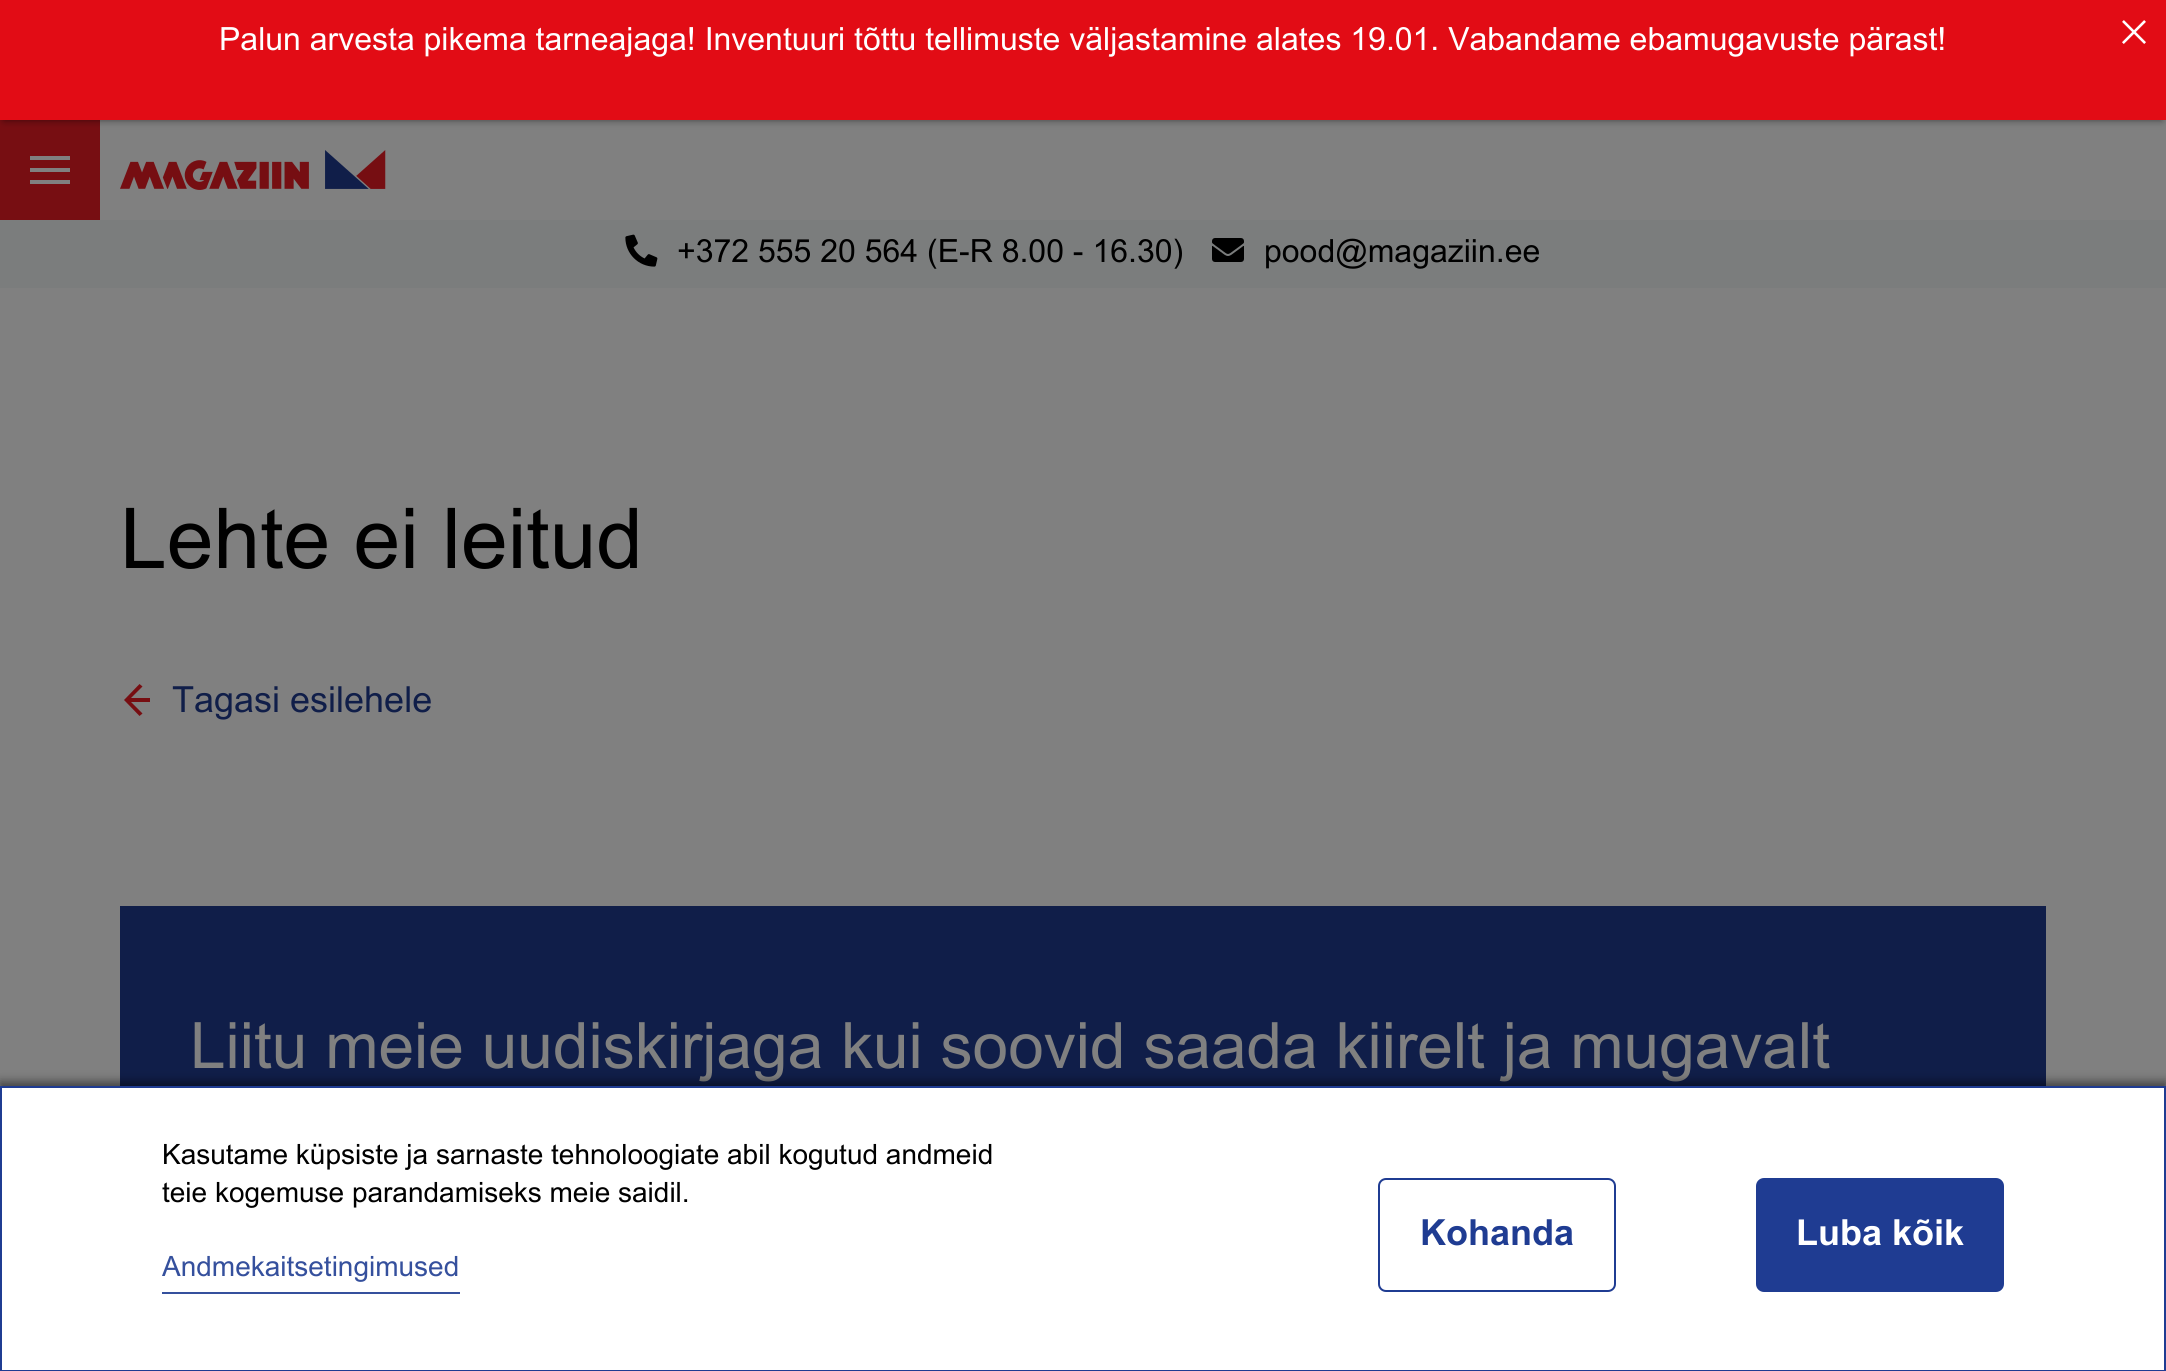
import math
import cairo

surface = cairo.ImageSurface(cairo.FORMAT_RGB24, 2166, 1371)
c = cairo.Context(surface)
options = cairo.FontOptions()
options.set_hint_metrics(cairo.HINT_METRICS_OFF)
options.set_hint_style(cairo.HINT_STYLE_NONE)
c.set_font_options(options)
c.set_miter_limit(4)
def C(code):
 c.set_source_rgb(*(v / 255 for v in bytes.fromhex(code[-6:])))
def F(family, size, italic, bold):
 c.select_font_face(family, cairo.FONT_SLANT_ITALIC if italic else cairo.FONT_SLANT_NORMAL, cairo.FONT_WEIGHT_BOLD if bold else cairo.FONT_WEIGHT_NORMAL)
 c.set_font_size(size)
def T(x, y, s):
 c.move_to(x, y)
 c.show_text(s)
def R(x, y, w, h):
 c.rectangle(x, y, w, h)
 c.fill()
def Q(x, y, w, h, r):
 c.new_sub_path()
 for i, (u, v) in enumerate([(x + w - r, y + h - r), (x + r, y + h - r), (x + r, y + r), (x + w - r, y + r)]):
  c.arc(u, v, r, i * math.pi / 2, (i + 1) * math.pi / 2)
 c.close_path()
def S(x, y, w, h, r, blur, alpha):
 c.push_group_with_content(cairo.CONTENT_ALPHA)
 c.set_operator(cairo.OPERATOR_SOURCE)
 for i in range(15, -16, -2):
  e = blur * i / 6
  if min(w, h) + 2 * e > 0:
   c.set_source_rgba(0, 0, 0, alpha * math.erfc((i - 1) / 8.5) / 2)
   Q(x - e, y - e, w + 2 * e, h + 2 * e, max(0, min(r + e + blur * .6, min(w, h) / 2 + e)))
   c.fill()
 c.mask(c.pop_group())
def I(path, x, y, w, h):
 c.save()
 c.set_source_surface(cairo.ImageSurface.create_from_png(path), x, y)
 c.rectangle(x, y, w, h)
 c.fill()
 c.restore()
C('808080')
c.paint()
C('770e12')
R(0,120,100,100)
C('000000')
S(4,8,2158,112,0,4,.5)
C('e20c15')
R(0,0,2166,120)
F('Arial',32,0,0)
C('ffffff')
T(219,50,'Palun arvesta pikema tarneajaga! Inventuuri tõttu tellimuste väljastamine alates 19.01. Vabandame ebamugavuste pärast!')
I('1.png',2122,20,24,24)
C('7b7d7d')
R(0,220,2166,68)
C('808080')
R(30,156,40,4)
R(30,168,40,4)
R(30,180,40,4)
I('2.png',120,150,266,40)
I('3.png',625,234,33,33)
C('000000')
T(677,262,'+372 555 20 564 (E-R 8.00 - 16.30)')
I('4.png',1212,238,32,24)
T(1264,262,'pood@magaziin.ee')
F('Arial',84,0,0)
T(120,568,'Lehte ei leitud')
C('770e12')
c.new_path()
c.move_to(139.5,716)
c.line_to(142.5,713.5)
c.line_to(131,702)
c.line_to(150,702)
c.line_to(150,698)
c.line_to(131,698)
c.line_to(142.5,686.5)
c.line_to(139.5,684)
c.line_to(124,700)
c.close_path()
c.fill()
F('Arial',36,0,0)
C('101e49')
T(172,712,'Tagasi esilehele')
R(120,906,1926,180)
F('Arial',64,0,0)
C('808080')
T(190,1068,'Liitu meie uudiskirjaga kui soovid saada kiirelt ja mugavalt')
C('000000')
S(0,1082,2166,286,0,5,.5)
C('ffffff')
c.rectangle(1,1087,2164,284)
c.fill_preserve()
C('1f3c92')
c.stroke()
F('Arial',28,0,0)
C('000000')
T(162,1164,'Kasutame küpsiste ja sarnaste tehnoloogiate abil kogutud andmeid')
T(162,1202,'teie kogemuse parandamiseks meie saidil.')
C('35509d')
T(162,1276,'Andmekaitsetingimused')
R(162,1292,298,2)
Q(1379,1179,236,112,7)
C('1f3c92')
c.stroke()
F('Arial',36,0,1)
T(1420,1245,'Kohanda')
Q(1756,1178,248,114,8)
c.fill()
C('ffffff')
T(1796,1245,'Luba kõik')
surface.write_to_png('o.png')
